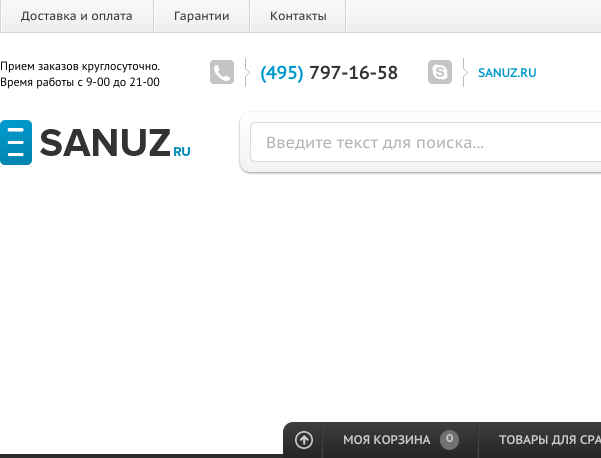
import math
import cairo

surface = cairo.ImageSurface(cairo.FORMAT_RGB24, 601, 458)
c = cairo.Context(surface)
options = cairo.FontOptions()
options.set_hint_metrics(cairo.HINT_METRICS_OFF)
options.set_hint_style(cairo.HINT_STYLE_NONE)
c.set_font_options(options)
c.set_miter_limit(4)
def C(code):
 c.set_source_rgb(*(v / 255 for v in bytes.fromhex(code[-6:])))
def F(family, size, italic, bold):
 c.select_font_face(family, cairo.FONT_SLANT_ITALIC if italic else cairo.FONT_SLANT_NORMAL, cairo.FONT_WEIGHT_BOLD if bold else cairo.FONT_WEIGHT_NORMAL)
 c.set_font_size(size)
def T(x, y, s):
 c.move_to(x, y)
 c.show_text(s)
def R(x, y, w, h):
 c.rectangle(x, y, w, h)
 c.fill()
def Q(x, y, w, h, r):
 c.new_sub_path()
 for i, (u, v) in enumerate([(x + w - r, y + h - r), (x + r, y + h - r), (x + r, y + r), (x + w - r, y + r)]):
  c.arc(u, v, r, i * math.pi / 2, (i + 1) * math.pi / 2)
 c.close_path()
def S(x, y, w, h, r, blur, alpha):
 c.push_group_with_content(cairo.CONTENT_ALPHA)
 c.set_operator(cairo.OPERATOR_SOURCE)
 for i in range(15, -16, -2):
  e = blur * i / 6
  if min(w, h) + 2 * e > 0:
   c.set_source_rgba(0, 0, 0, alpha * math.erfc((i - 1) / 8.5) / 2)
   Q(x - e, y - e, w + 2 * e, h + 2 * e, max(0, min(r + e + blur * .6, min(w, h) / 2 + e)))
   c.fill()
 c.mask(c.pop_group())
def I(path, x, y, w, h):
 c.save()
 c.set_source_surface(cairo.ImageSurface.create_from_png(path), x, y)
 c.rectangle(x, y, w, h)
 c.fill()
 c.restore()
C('ffffff')
c.paint()
gradient = cairo.LinearGradient(301,0,301,32)
gradient.add_color_stop_rgba(0,0.976,0.976,0.976,1)
gradient.add_color_stop_rgba(1,0.933,0.933,0.933,1)
c.set_source(gradient)
R(2,0,599,32)
C('d2d4d8')
R(0,32,601,1)
I('1.png',345,0,2,32)
I('1.png',0,0,2,32)
F('PT Sans Caption',12,0,0)
C('333333')
T(21,20,'Доставка и оплата')
I('1.png',153,0,2,32)
T(174,20,'Гарантии')
I('1.png',249,0,2,32)
T(270,20,'Контакты')
F('PT Sans',12,0,0)
C('000000')
T(0,70,'Прием заказов круглосуточно.')
T(0,86,'Время работы с 9-00 до 21-00')
I('2.png',210,58,40,29)
F('PT Sans Caption',18,0,1)
C('0099cc')
T(260,79,'(495)')
C('333333')
T(309,79,'797-16-58')
I('3.png',428,58,40,29)
F('PT Sans Caption',12,0,1)
C('0099cc')
T(478,77,'SANUZ.RU')
I('4.png',0,120,190,45)
C('999999')
S(240,113,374,60,10,1,1)
gradient = cairo.LinearGradient(485,112,485,172)
gradient.add_color_stop_rgba(0,1,1,1,1)
gradient.add_color_stop_rgba(1,0.949,0.949,0.949,1)
c.set_source(gradient)
Q(240,112,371,60,10)
c.fill()
C('ffffff')
c.new_path()
c.move_to(255,123)
c.line_to(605,123)
c.line_to(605,161)
c.line_to(255,161)
c.curve_to(253,161,251,159,251,157)
c.line_to(251,127)
c.curve_to(251,125,253,123,255,123)
c.close_path()
c.fill()
C('dedbdb')
c.set_fill_rule(cairo.FILL_RULE_EVEN_ODD)
c.new_path()
c.move_to(255,122)
c.line_to(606,122)
c.line_to(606,162)
c.line_to(255,162)
c.curve_to(252,162,250,160,250,157)
c.line_to(250,127)
c.curve_to(250,124,252,122,255,122)
c.close_path()
c.move_to(255,123)
c.line_to(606,123)
c.line_to(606,161)
c.line_to(255,161)
c.curve_to(253,161,251,159,251,157)
c.line_to(251,127)
c.curve_to(251,125,253,123,255,123)
c.close_path()
c.fill()
F('PT Sans Caption',16,0,0)
C('b3b3b3')
T(266,148,'Введите текст для поиска...')
C('2d2d2d')
R(0,454,283,4)
gradient = cairo.LinearGradient(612,422,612,458)
gradient.add_color_stop_rgba(0,0.243,0.243,0.243,1)
gradient.add_color_stop_rgba(1,0.145,0.145,0.145,1)
c.set_source(gradient)
c.new_path()
c.move_to(293,422)
c.line_to(601,422)
c.curve_to(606.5,422,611,426.5,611,432)
c.line_to(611,458)
c.line_to(283,458)
c.line_to(283,432)
c.curve_to(283,426.5,287.5,422,293,422)
c.close_path()
c.fill()
I('5.png',295,431,18,18)
I('6.png',321,422,2,36)
F('PT Sans Caption',12,0,1)
C('cccccc')
T(343,444,'МОЯ КОРЗИНА')
C('717171')
Q(440,430,19,20,9.5)
c.fill()
F('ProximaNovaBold',12,0,1)
C('cccccc')
T(446,442,'0')
I('6.png',477,422,2,36)
F('PT Sans Caption',12,0,1)
T(499,444,'ТОВАРЫ ДЛЯ СРА')
surface.write_to_png('o.png')
